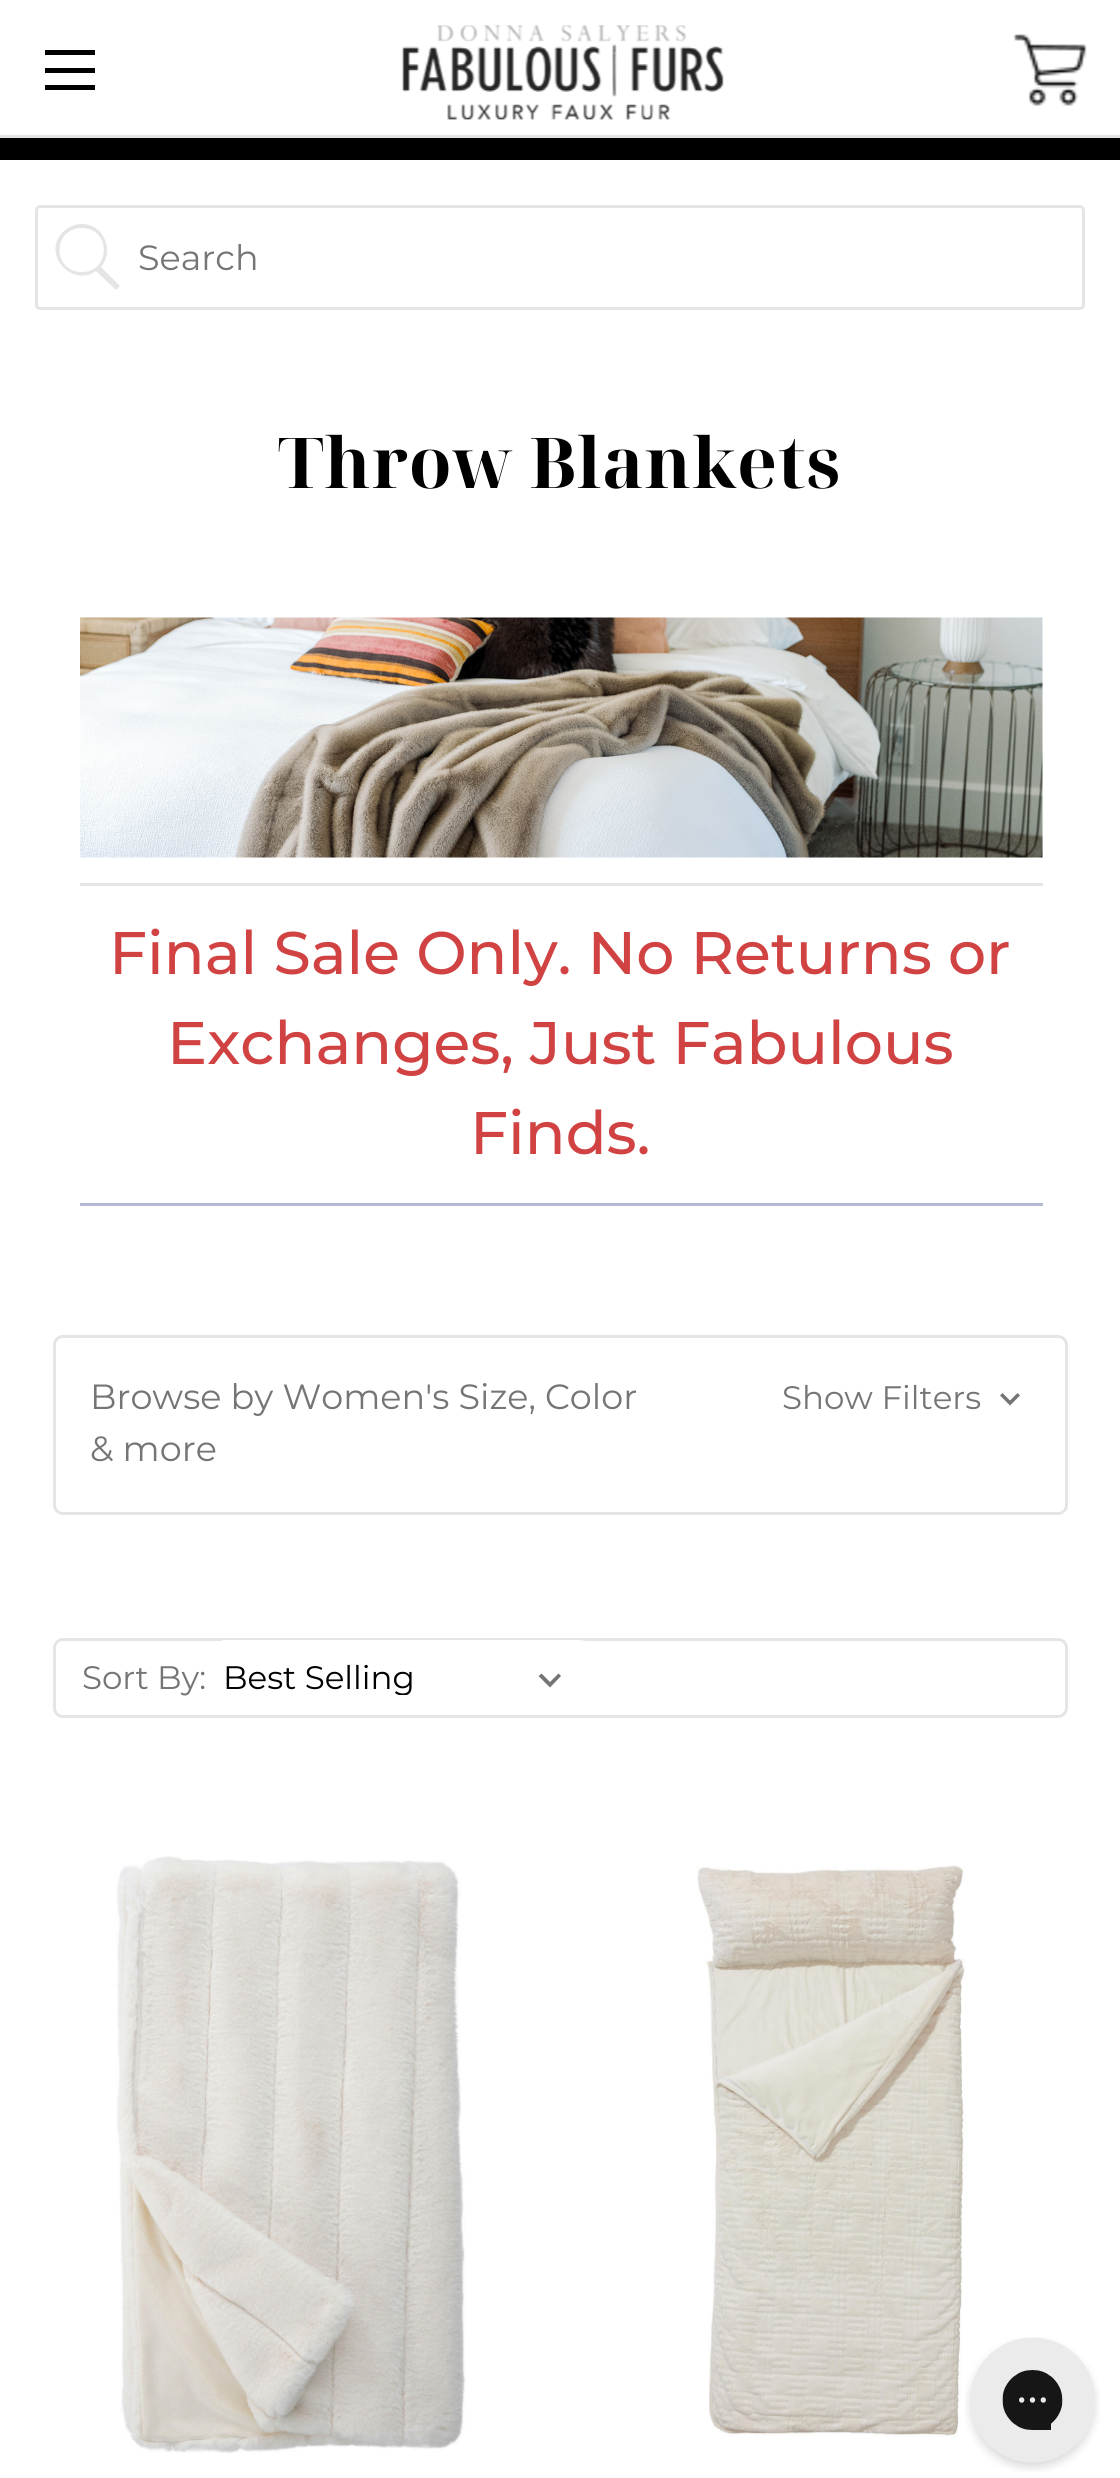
import math
import cairo

surface = cairo.ImageSurface(cairo.FORMAT_RGB24, 1120, 2478)
c = cairo.Context(surface)
options = cairo.FontOptions()
options.set_hint_metrics(cairo.HINT_METRICS_OFF)
options.set_hint_style(cairo.HINT_STYLE_NONE)
c.set_font_options(options)
c.set_miter_limit(4)
def C(code):
 c.set_source_rgb(*(v / 255 for v in bytes.fromhex(code[-6:])))
def F(family, size, italic, bold):
 c.select_font_face(family, cairo.FONT_SLANT_ITALIC if italic else cairo.FONT_SLANT_NORMAL, cairo.FONT_WEIGHT_BOLD if bold else cairo.FONT_WEIGHT_NORMAL)
 c.set_font_size(size)
def T(x, y, s):
 c.move_to(x, y)
 c.show_text(s)
def L(x, y, s, letter, word):
 c.move_to(x, y)
 for ch in s:
  c.show_text(ch)
  c.rel_move_to(letter + word * (ch == ' '), 0)
def R(x, y, w, h):
 c.rectangle(x, y, w, h)
 c.fill()
def Q(x, y, w, h, r):
 c.new_sub_path()
 for i, (u, v) in enumerate([(x + w - r, y + h - r), (x + r, y + h - r), (x + r, y + r), (x + w - r, y + r)]):
  c.arc(u, v, r, i * math.pi / 2, (i + 1) * math.pi / 2)
 c.close_path()
def I(path, x, y, w, h):
 c.save()
 c.set_source_surface(cairo.ImageSurface.create_from_png(path), x, y)
 c.rectangle(x, y, w, h)
 c.fill()
 c.restore()
C('ffffff')
c.paint()
C('e5e5e5')
R(0,135,1120,3)
C('000000')
R(45,68,50,5)
R(45,50,50,5)
R(45,85,50,5)
I('1.png',402,25,322,95)
I('2.png',1013,34,74,72)
R(0,138,1120,22)
C('e5e5e5')
c.new_path()
c.move_to(82,224)
c.curve_to(75,224,68,227,63,232)
c.curve_to(41,254,72,288,96,271)
c.line_to(116,290)
c.line_to(120,286)
c.line_to(101,267)
c.curve_to(115,250,103,224,82,224)
c.close_path()
c.move_to(82,228)
c.curve_to(111,228,111,272,82,272)
c.curve_to(52,272,52,228,82,228)
c.close_path()
c.fill()
Q(36.5,206.5,1047,102,3.5)
c.set_line_width(3)
c.stroke()
F('Montserrat',35,0,0)
C('757575')
T(138,270,'Search')
F('Noto Serif Display',70,0,1)
C('000000')
L(278,488,'Throw Blankets',.6,0)
I('3.png',80,617,963,241)
C('e5e5e5')
R(80,883,963,3)
F('Montserrat Medium',60,0,0)
C('d14343')
T(109,974,'Final Sale Only. No Returns or')
T(167,1064,'Exchanges, Just Fabulous')
T(470,1154,'Finds.')
C('b4bad1')
R(80,1203,963,3)
Q(54.5,1336.5,1012,177,8.5)
C('e5e5e5')
c.stroke()
F('Montserrat',35,0,0)
C('757575')
T(90,1409,'Browse by Women\'s Size, Color')
T(90,1461,'& more')
F('Montserrat',32.5,0,0)
T(782,1409,'Show Filters')
c.new_path()
c.move_to(1002.5,1393)
c.line_to(1010,1400.5)
c.line_to(1017.5,1393)
c.line_to(1020,1395.5)
c.line_to(1010,1405.5)
c.line_to(1000,1395.5)
c.close_path()
c.fill()
Q(54.5,1639.5,1012,77,8.5)
C('e5e5e5')
c.stroke()
C('757575')
T(82,1689,'Sort By:')
C('ffffff')
Q(215,1640,375,75,10)
c.fill()
C('757575')
c.new_path()
c.move_to(558.5,1673.5)
c.line_to(550,1682)
c.line_to(541.5,1673.5)
c.line_to(538.5,1676)
c.line_to(550,1687.5)
c.line_to(561,1676)
c.close_path()
c.fill()
c.save()
c.rectangle(223,1660,297,35)
c.clip()
C('000000')
T(223,1689,'Best Selling')
c.restore()
I('4.png',116,1856,350,598)
I('5.png',697,1865,269,572)
I('6.png',965,2337,135,135)
surface.write_to_png('o.png')
